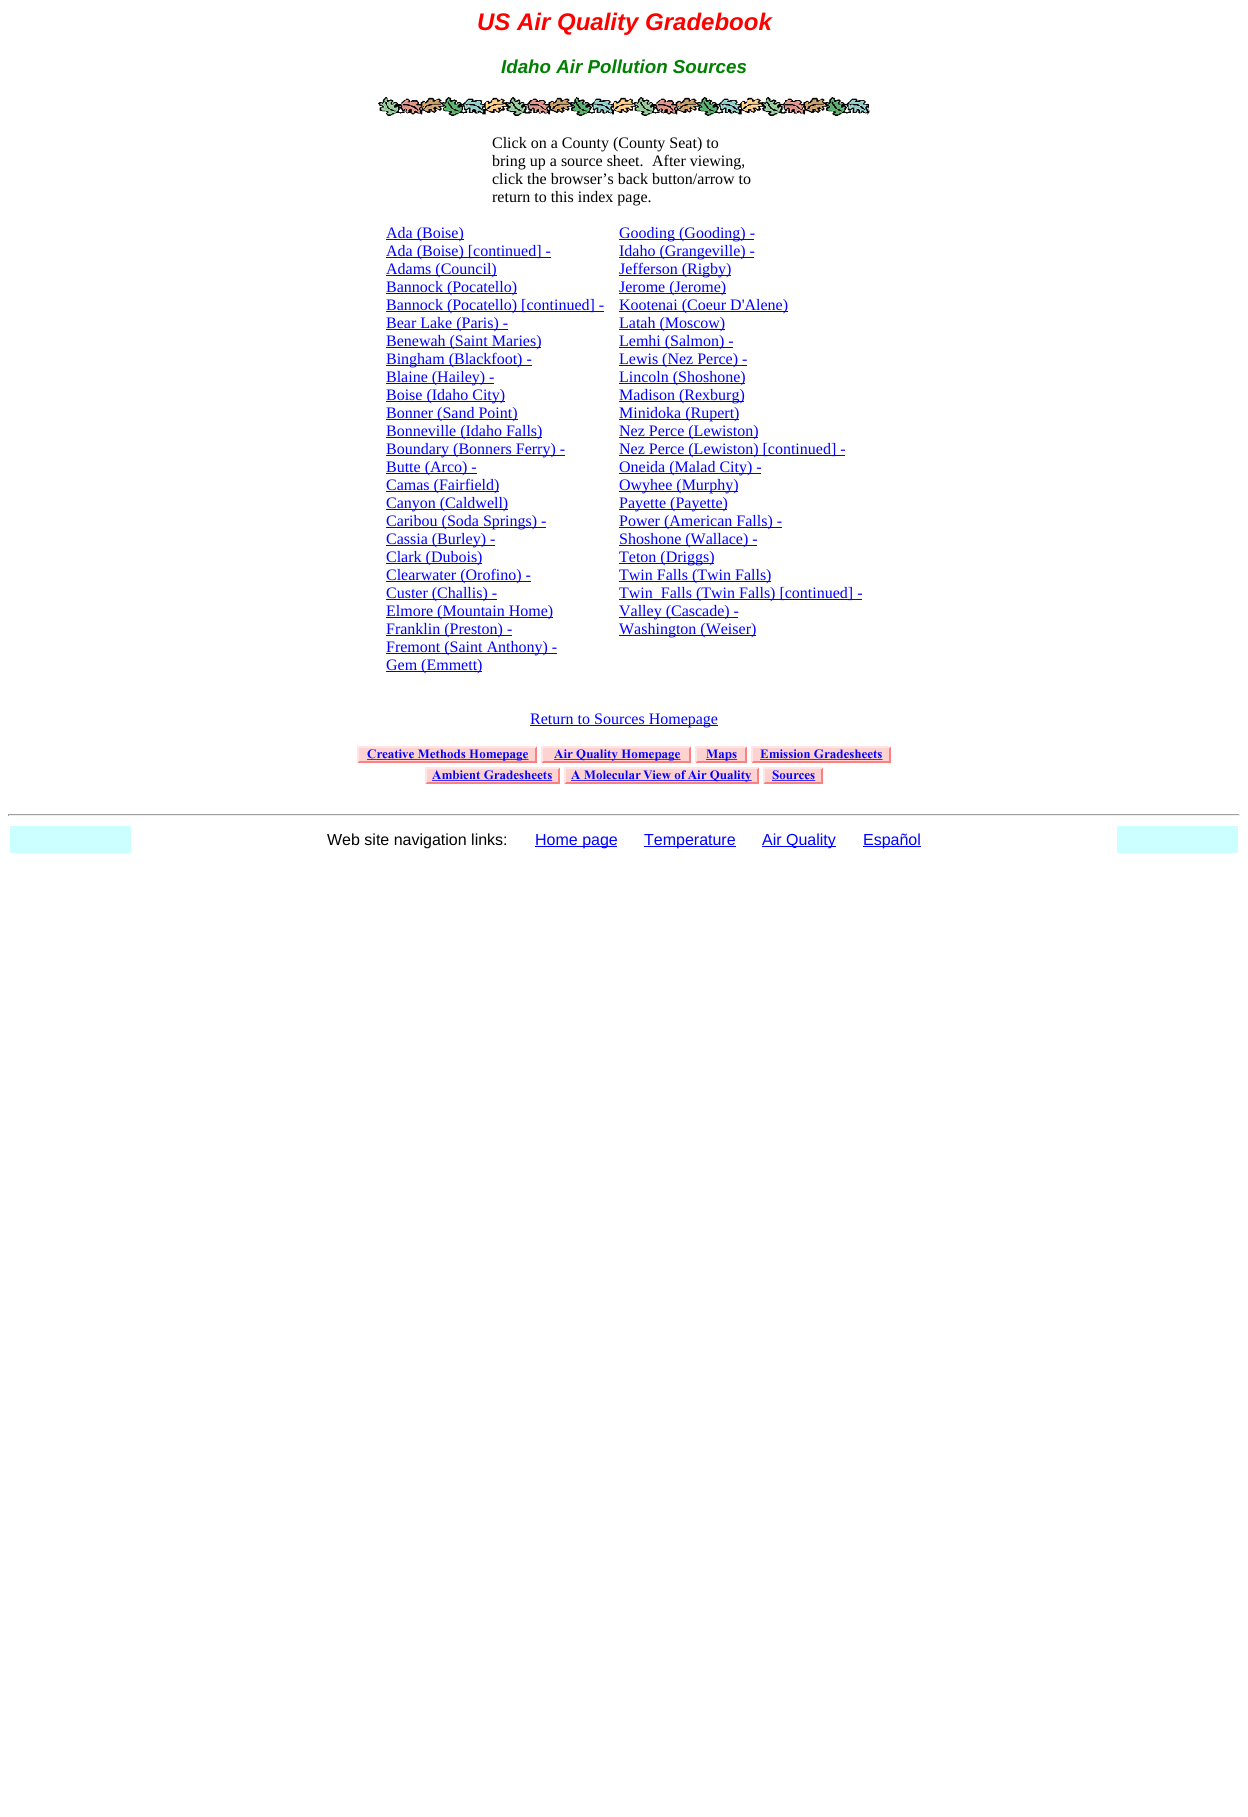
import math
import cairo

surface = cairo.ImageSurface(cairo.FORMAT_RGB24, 1248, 1817)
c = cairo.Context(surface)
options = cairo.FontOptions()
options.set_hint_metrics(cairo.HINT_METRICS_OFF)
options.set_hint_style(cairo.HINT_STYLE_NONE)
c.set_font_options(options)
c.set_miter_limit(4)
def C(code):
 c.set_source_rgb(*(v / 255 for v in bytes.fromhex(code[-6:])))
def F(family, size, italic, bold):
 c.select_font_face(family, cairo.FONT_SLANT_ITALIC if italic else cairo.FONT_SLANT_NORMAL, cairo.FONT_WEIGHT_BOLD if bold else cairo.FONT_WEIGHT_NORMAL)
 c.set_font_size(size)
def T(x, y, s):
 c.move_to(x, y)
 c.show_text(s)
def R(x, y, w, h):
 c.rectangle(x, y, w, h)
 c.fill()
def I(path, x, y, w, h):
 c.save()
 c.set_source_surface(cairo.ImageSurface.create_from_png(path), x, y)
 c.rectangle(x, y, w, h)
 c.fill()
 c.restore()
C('ffffff')
c.paint()
F('Liberation Sans',24,1,1)
C('ff0000')
T(477,30,'US Air Quality Gradebook')
F('Liberation Sans',18.75,1,1)
C('008000')
T(501,73,'Idaho Air Pollution Sources')
I('1.png',378,97,492,19)
F('Liberation Serif',16,0,0)
C('000000')
T(492,148,'Click on a County (County Seat) to')
T(492,166,'bring up a source sheet.')
T(652,166,'After viewing,')
T(492,184,'click the browser’s back button/arrow to')
T(492,202,'return to this index page.')
C('0000ff')
R(386,239,78,1)
T(386,238,'Ada (Boise)')
R(386,257,165,1)
T(386,256,'Ada (Boise) [continued] -')
R(386,275,111,1)
T(386,274,'Adams (Council)')
R(386,293,131,1)
T(386,292,'Bannock (Pocatello)')
R(386,311,218,1)
T(386,310,'Bannock (Pocatello) [continued] -')
R(386,329,122,1)
T(386,328,'Bear Lake (Paris) -')
R(386,347,155,1)
T(386,346,'Benewah (Saint Maries)')
R(386,365,146,1)
T(386,364,'Bingham (Blackfoot) -')
R(386,383,108,1)
T(386,382,'Blaine (Hailey) -')
R(386,401,119,1)
T(386,400,'Boise (Idaho City)')
R(386,419,132,1)
T(386,418,'Bonner (Sand Point)')
R(386,437,156,1)
T(386,436,'Bonneville (Idaho Falls)')
R(386,455,179,1)
T(386,454,'Boundary (Bonners Ferry) -')
R(386,473,91,1)
T(386,472,'Butte (Arco) -')
R(386,491,113,1)
T(386,490,'Camas (Fairfield)')
R(386,509,122,1)
T(386,508,'Canyon (Caldwell)')
R(386,527,160,1)
T(386,526,'Caribou (Soda Springs) -')
R(386,545,109,1)
T(386,544,'Cassia (Burley) -')
R(386,563,96,1)
T(386,562,'Clark (Dubois)')
R(386,581,145,1)
T(386,580,'Clearwater (Orofino) -')
R(386,599,111,1)
T(386,598,'Custer (Challis) -')
R(386,617,167,1)
T(386,616,'Elmore (Mountain Home)')
R(386,635,126,1)
T(386,634,'Franklin (Preston) -')
R(386,653,171,1)
T(386,652,'Fremont (Saint Anthony) -')
R(386,671,96,1)
T(386,670,'Gem (Emmett)')
R(619,239,135,1)
T(619,238,'Gooding (Gooding) -')
R(619,257,135,1)
T(619,256,'Idaho (Grangeville) -')
R(619,275,112,1)
T(619,274,'Jefferson (Rigby)')
R(619,293,107,1)
T(619,292,'Jerome (Jerome)')
R(619,311,169,1)
T(619,310,'Kootenai (Coeur D\'Alene)')
R(619,329,106,1)
T(619,328,'Latah (Moscow)')
R(619,347,114,1)
T(619,346,'Lemhi (Salmon) -')
R(619,365,128,1)
T(619,364,'Lewis (Nez Perce) -')
R(619,383,126,1)
T(619,382,'Lincoln (Shoshone)')
R(619,401,125,1)
T(619,400,'Madison (Rexburg)')
R(619,419,120,1)
T(619,418,'Minidoka (Rupert)')
R(619,437,139,1)
T(619,436,'Nez Perce (Lewiston)')
R(619,455,226,1)
T(619,454,'Nez Perce (Lewiston) [continued] -')
R(619,473,142,1)
T(619,472,'Oneida (Malad City) -')
R(619,491,119,1)
T(619,490,'Owyhee (Murphy)')
R(619,509,108,1)
T(619,508,'Payette (Payette)')
R(619,527,163,1)
T(619,526,'Power (American Falls) -')
R(619,545,138,1)
T(619,544,'Shoshone (Wallace) -')
R(619,563,95,1)
T(619,562,'Teton (Driggs)')
R(619,581,152,1)
T(619,580,'Twin Falls (Twin Falls)')
R(619,599,243,1)
T(619,598,'Twin_Falls (Twin Falls) [continued] -')
R(619,617,119,1)
T(619,616,'Valley (Cascade) -')
R(619,635,137,1)
T(619,634,'Washington (Weiser)')
R(530,725,188,1)
T(530,724,'Return to Sources Homepage')
I('2.png',357,746,180,17)
I('3.png',541,746,150,17)
I('4.png',695,746,52,17)
I('5.png',751,746,140,17)
I('6.png',425,767,135,17)
I('7.png',564,767,195,17)
I('8.png',763,767,60,17)
C('9f9f9f')
R(8,814,1232,1)
C('eeeeee')
R(1239,814,1,2)
R(8,815,1232,1)
C('9f9f9f')
R(8,814,1,2)
C('ccffff')
R(10,826,121,27)
F('Liberation Sans',16,0,0)
C('000000')
T(327,845,'Web site navigation links:')
C('0000ff')
R(535,846,82,1)
T(535,845,'Home page')
R(644,846,92,1)
T(644,845,'Temperature')
R(762,846,74,1)
T(762,845,'Air Quality')
R(863,846,58,1)
T(863,845,'Español')
C('ccffff')
R(1117,826,121,27)
surface.write_to_png('o.png')
